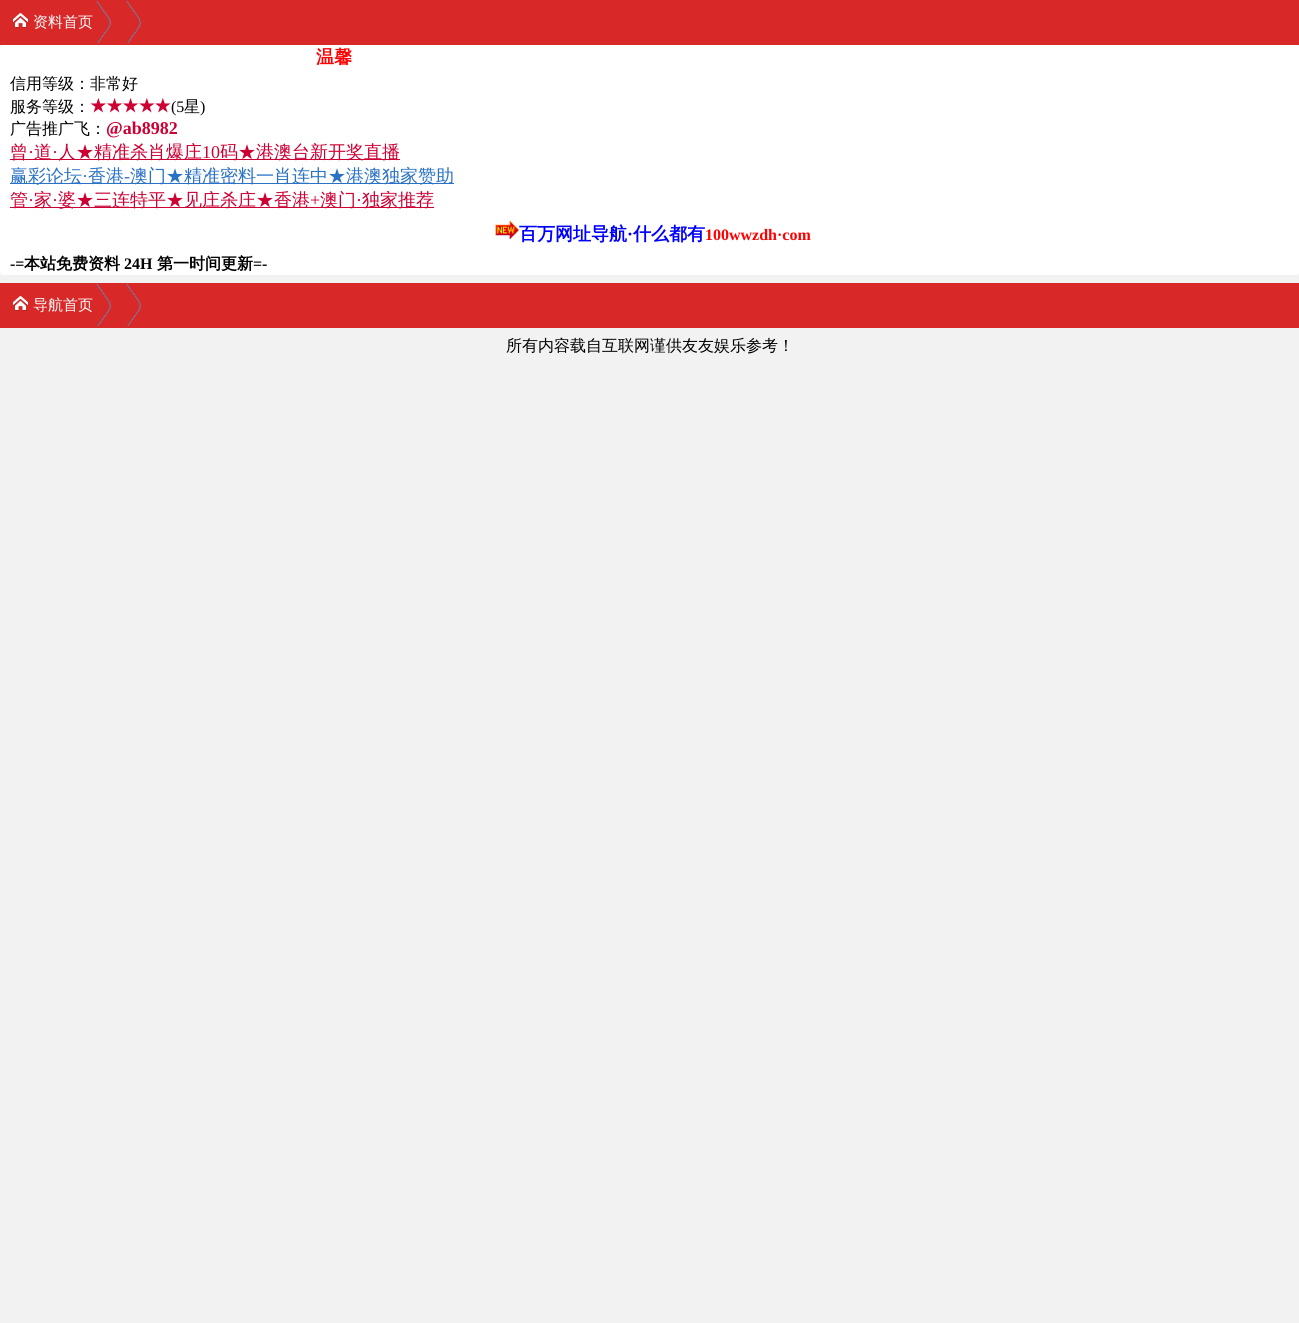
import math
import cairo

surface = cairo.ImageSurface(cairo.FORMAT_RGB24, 1299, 1323)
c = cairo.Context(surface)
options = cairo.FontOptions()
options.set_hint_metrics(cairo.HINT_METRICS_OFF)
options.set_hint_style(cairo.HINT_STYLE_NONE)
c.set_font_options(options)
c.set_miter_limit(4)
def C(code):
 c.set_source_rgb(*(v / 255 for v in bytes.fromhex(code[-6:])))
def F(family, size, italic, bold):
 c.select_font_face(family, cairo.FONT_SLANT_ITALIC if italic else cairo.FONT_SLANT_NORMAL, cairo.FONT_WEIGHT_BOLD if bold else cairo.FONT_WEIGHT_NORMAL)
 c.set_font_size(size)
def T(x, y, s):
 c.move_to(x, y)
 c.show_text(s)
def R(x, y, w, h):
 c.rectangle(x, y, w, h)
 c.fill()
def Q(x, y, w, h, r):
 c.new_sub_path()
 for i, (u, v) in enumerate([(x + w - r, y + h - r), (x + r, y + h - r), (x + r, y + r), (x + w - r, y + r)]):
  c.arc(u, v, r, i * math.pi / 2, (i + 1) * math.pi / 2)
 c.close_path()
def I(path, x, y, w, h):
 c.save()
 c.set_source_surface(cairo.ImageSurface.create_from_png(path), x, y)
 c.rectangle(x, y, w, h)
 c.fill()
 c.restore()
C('f2f2f2')
c.paint()
C('d82828')
R(0,0,1299,45)
I('1.png',96,1,15,42)
I('2.png',13,13,15,15)
F('WenQuanYi Zen Hei Medium',15,0,0)
C('ffffff')
T(33,27,'资料首页')
I('3.png',126,1,15,42)
Q(0,45,1299,230,3)
c.fill()
F('WenQuanYi Zen Hei',18,0,1)
C('ff0000')
T(316,63,'温馨')
F('WenQuanYi Zen Hei Medium',16,0,0)
C('000000')
T(10,89,'信用等级：非常好')
T(10,112,'服务等级：')
F('DejaVu Sans',18,0,1)
C('cc0033')
T(90,112,'★★★★★')
F('Liberation Serif',16,0,0)
C('000000')
T(171,112,'(5')
F('WenQuanYi Zen Hei Medium',16,0,0)
T(184,112,'星')
F('Liberation Serif',16,0,0)
T(200,112,')')
F('WenQuanYi Zen Hei Medium',16,0,0)
T(10,134,'广告推广飞：')
F('Liberation Serif',18,0,1)
C('cc0033')
T(106,134,'@ab8982')
R(10,159,390,1)
F('WenQuanYi Zen Hei Medium',18,0,0)
T(10,158,'曾')
F('Liberation Serif',18,0,0)
T(28,158,'·')
F('WenQuanYi Zen Hei Medium',18,0,0)
T(34,158,'道')
F('Liberation Serif',18,0,0)
T(52,158,'·')
F('WenQuanYi Zen Hei Medium',18,0,0)
T(58,158,'人★精准杀肖爆庄')
F('Liberation Serif',18,0,0)
T(202,158,'10')
F('WenQuanYi Zen Hei Medium',18,0,0)
T(220,158,'码★港澳台新开奖直播')
C('2a72c5')
R(10,183,444,1)
T(10,182,'赢彩论坛')
F('Liberation Serif',18,0,0)
T(82,182,'·')
F('WenQuanYi Zen Hei Medium',18,0,0)
T(88,182,'香港')
F('Liberation Serif',18,0,0)
T(124,182,'-')
F('WenQuanYi Zen Hei Medium',18,0,0)
T(130,182,'澳门★精准密料一肖连中★港澳独家赞助')
C('cc0033')
R(10,207,424,1)
T(10,206,'管')
F('Liberation Serif',18,0,0)
T(28,206,'·')
F('WenQuanYi Zen Hei Medium',18,0,0)
T(34,206,'家')
F('Liberation Serif',18,0,0)
T(52,206,'·')
F('WenQuanYi Zen Hei Medium',18,0,0)
T(58,206,'婆★三连特平★见庄杀庄★香港')
F('Liberation Serif',18,0,0)
T(310,206,'+')
F('WenQuanYi Zen Hei Medium',18,0,0)
T(320,206,'澳门')
F('Liberation Serif',18,0,0)
T(356,206,'·')
F('WenQuanYi Zen Hei Medium',18,0,0)
T(362,206,'独家推荐')
I('4.png',495,221,24,19)
F('WenQuanYi Zen Hei',18,0,1)
C('0000ff')
T(519,240,'百万网址导航')
F('Liberation Serif',18,0,1)
T(627,240,'·')
F('WenQuanYi Zen Hei',18,0,1)
T(633,240,'什么都有')
F('Liberation Serif',16,0,1)
C('ff0000')
T(705,240,'100wwzdh·com')
C('000000')
T(10,269,'-=')
F('WenQuanYi Zen Hei',16,0,1)
T(24,269,'本站免费资料')
F('Liberation Serif',16,0,1)
T(124,269,'24H')
F('WenQuanYi Zen Hei',16,0,1)
T(157,269,'第一时间更新')
F('Liberation Serif',16,0,1)
T(253,269,'=-')
C('d82828')
R(0,283,1299,45)
I('1.png',96,284,15,42)
I('2.png',13,296,15,15)
F('WenQuanYi Zen Hei Medium',15,0,0)
C('ffffff')
T(33,310,'导航首页')
I('3.png',126,284,15,42)
F('WenQuanYi Zen Hei Medium',16,0,0)
C('000000')
T(506,351,'所有内容载自互联网谨供友友娱乐参考！')
surface.write_to_png('o.png')
